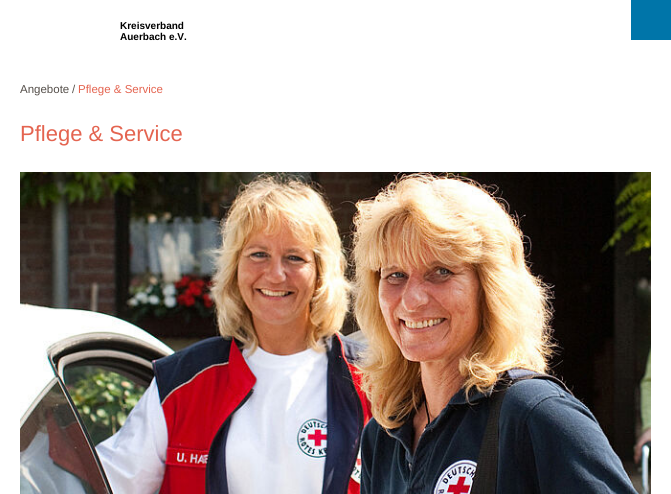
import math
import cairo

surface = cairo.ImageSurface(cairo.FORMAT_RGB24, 671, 494)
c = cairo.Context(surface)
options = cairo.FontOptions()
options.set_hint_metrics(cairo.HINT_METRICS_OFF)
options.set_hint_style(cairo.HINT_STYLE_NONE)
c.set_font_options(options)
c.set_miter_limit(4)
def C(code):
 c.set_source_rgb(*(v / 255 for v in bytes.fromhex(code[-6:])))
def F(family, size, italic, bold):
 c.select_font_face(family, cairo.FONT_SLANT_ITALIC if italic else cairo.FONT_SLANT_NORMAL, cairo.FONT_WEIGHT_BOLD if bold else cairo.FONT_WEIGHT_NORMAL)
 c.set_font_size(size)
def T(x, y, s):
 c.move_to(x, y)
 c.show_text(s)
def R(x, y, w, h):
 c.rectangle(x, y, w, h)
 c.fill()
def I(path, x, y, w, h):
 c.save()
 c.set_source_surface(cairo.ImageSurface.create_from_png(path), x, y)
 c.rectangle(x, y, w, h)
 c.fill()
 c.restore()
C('ffffff')
c.paint()
F('Liberation Sans',10,0,1)
C('000000')
T(120,29,'Kreisverband')
T(120,40,'Auerbach e.V.')
C('0075a9')
R(631,0,40,40)
F('Liberation Sans',11.5,0,0)
C('554f4a')
T(20,93,'Angebote')
T(72,93,'/')
C('e46450')
T(78,93,'Pflege & Service')
F('Liberation Sans',22,0,0)
T(20,141,'Pflege & Service')
I('1.png',20,172,631,322)
surface.write_to_png('o.png')
